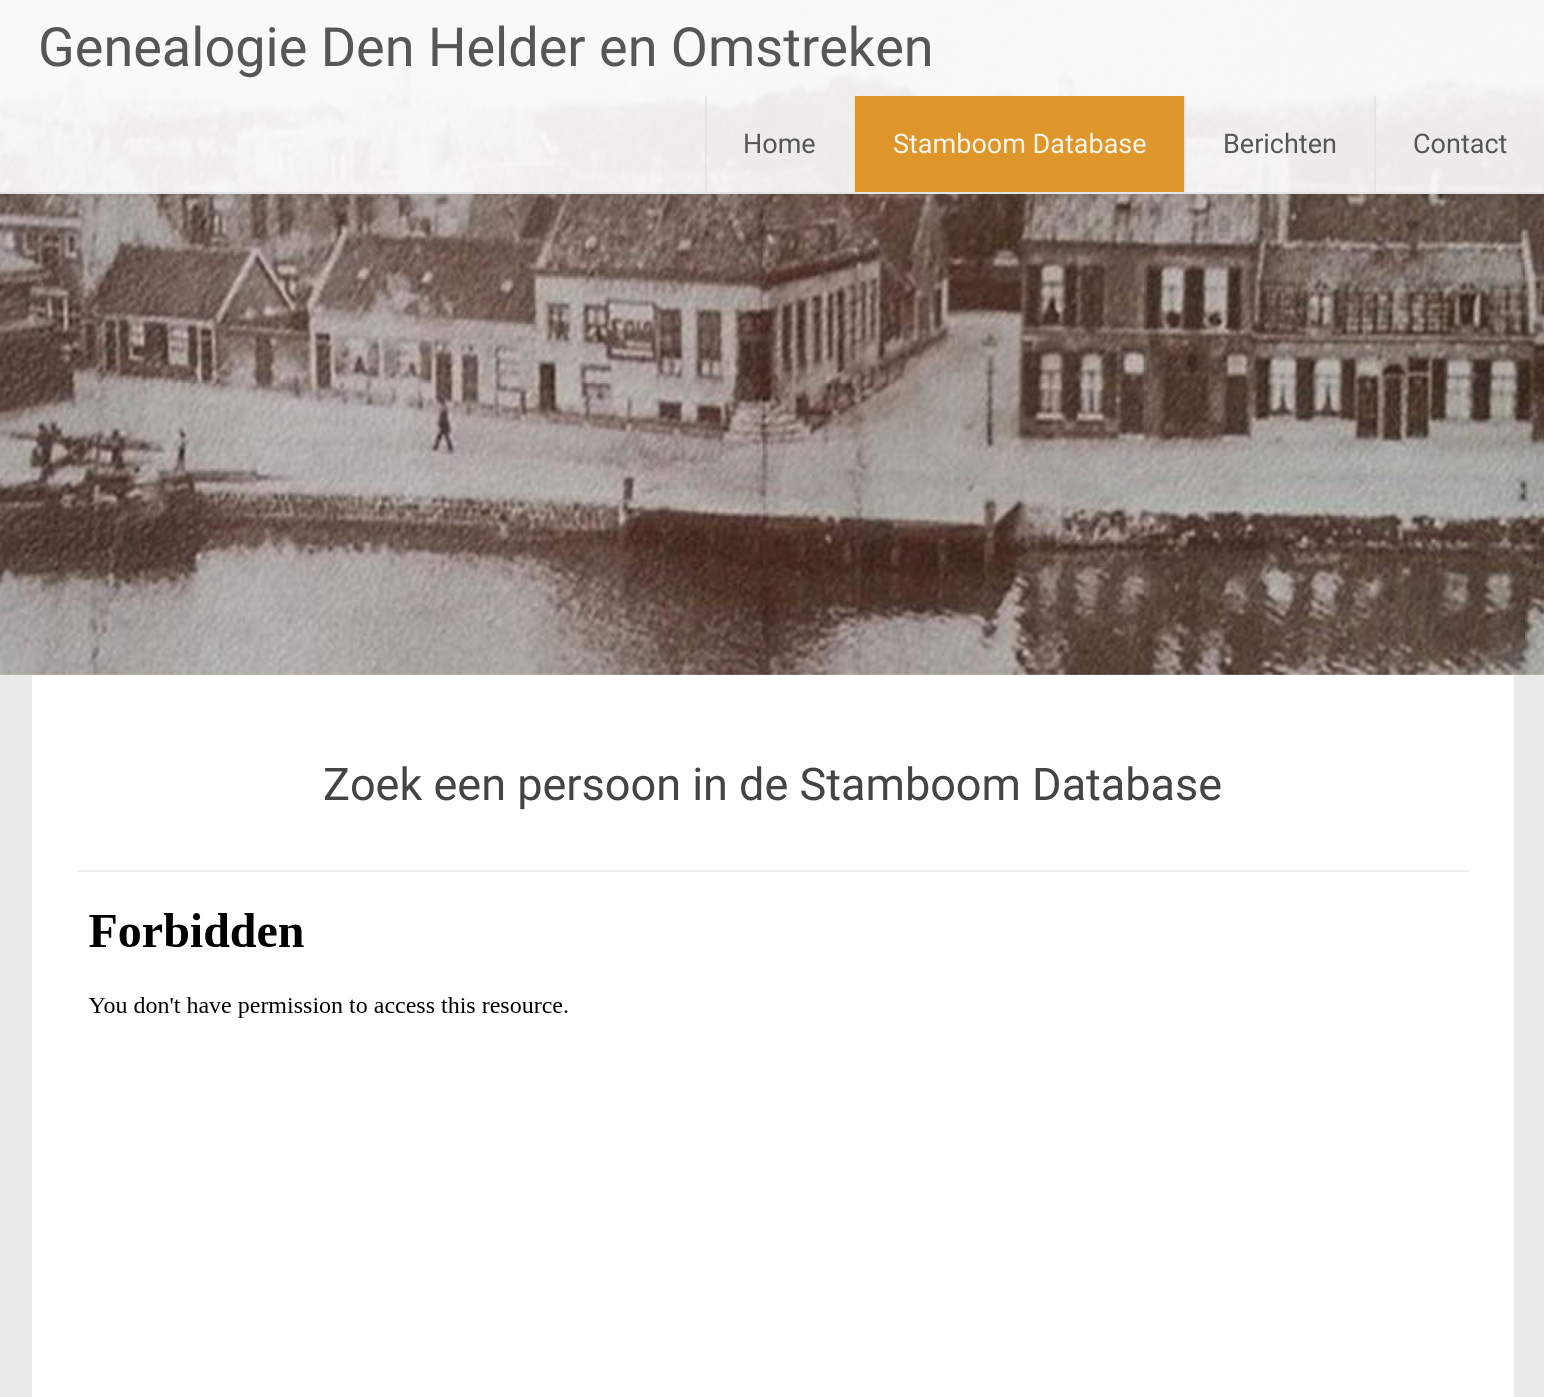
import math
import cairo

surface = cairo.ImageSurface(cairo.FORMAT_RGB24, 1544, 1397)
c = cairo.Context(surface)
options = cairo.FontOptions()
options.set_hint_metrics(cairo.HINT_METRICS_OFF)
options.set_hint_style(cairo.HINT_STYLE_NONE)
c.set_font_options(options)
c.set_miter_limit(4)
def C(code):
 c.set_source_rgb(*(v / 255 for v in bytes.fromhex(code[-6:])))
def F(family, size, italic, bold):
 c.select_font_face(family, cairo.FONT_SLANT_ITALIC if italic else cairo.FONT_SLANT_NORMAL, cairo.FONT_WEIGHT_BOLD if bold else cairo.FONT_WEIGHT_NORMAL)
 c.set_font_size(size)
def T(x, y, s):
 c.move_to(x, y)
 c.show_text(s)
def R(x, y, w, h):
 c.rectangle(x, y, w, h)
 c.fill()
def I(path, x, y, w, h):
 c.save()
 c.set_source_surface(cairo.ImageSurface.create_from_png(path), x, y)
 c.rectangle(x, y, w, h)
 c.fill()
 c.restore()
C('ffffff')
c.paint()
I('1.png',0,0,1544,675)
c.set_source_rgba(1,1,1,0.9)
R(0,0,1544,194)
c.set_source_rgba(0.882,0.894,0.902,0.9)
R(0,192,1544,2)
F('Roboto',54,0,0)
C('565656')
T(38,66,'Genealogie Den Helder en Omstreken')
c.set_source_rgba(0.882,0.894,0.902,0.9)
R(705,96,2,96)
F('Roboto',27,0,0)
C('565656')
T(743,153,'Home')
c.set_source_rgba(0.882,0.894,0.902,0.9)
R(854,96,2,96)
c.set_source_rgba(0.867,0.553,0.086,0.9)
R(855,96,329,96)
C('fcf5ea')
T(893,153,'Stamboom Database')
c.set_source_rgba(0.882,0.894,0.902,0.9)
R(1184,96,2,96)
C('565656')
T(1223,153,'Berichten')
c.set_source_rgba(0.882,0.894,0.902,0.9)
R(1374,96,2,96)
C('565656')
T(1413,153,'Contact')
C('eaeaea')
R(0,675,1544,722)
C('ffffff')
R(32,675,1482,722)
F('Roboto',45,0,0)
C('444444')
T(323,800,'Zoek een persoon in de Stamboom Database')
C('eeeeee')
R(77,870,1392,2)
I('2.png',88,913,480,105)
surface.write_to_png('o.png')
